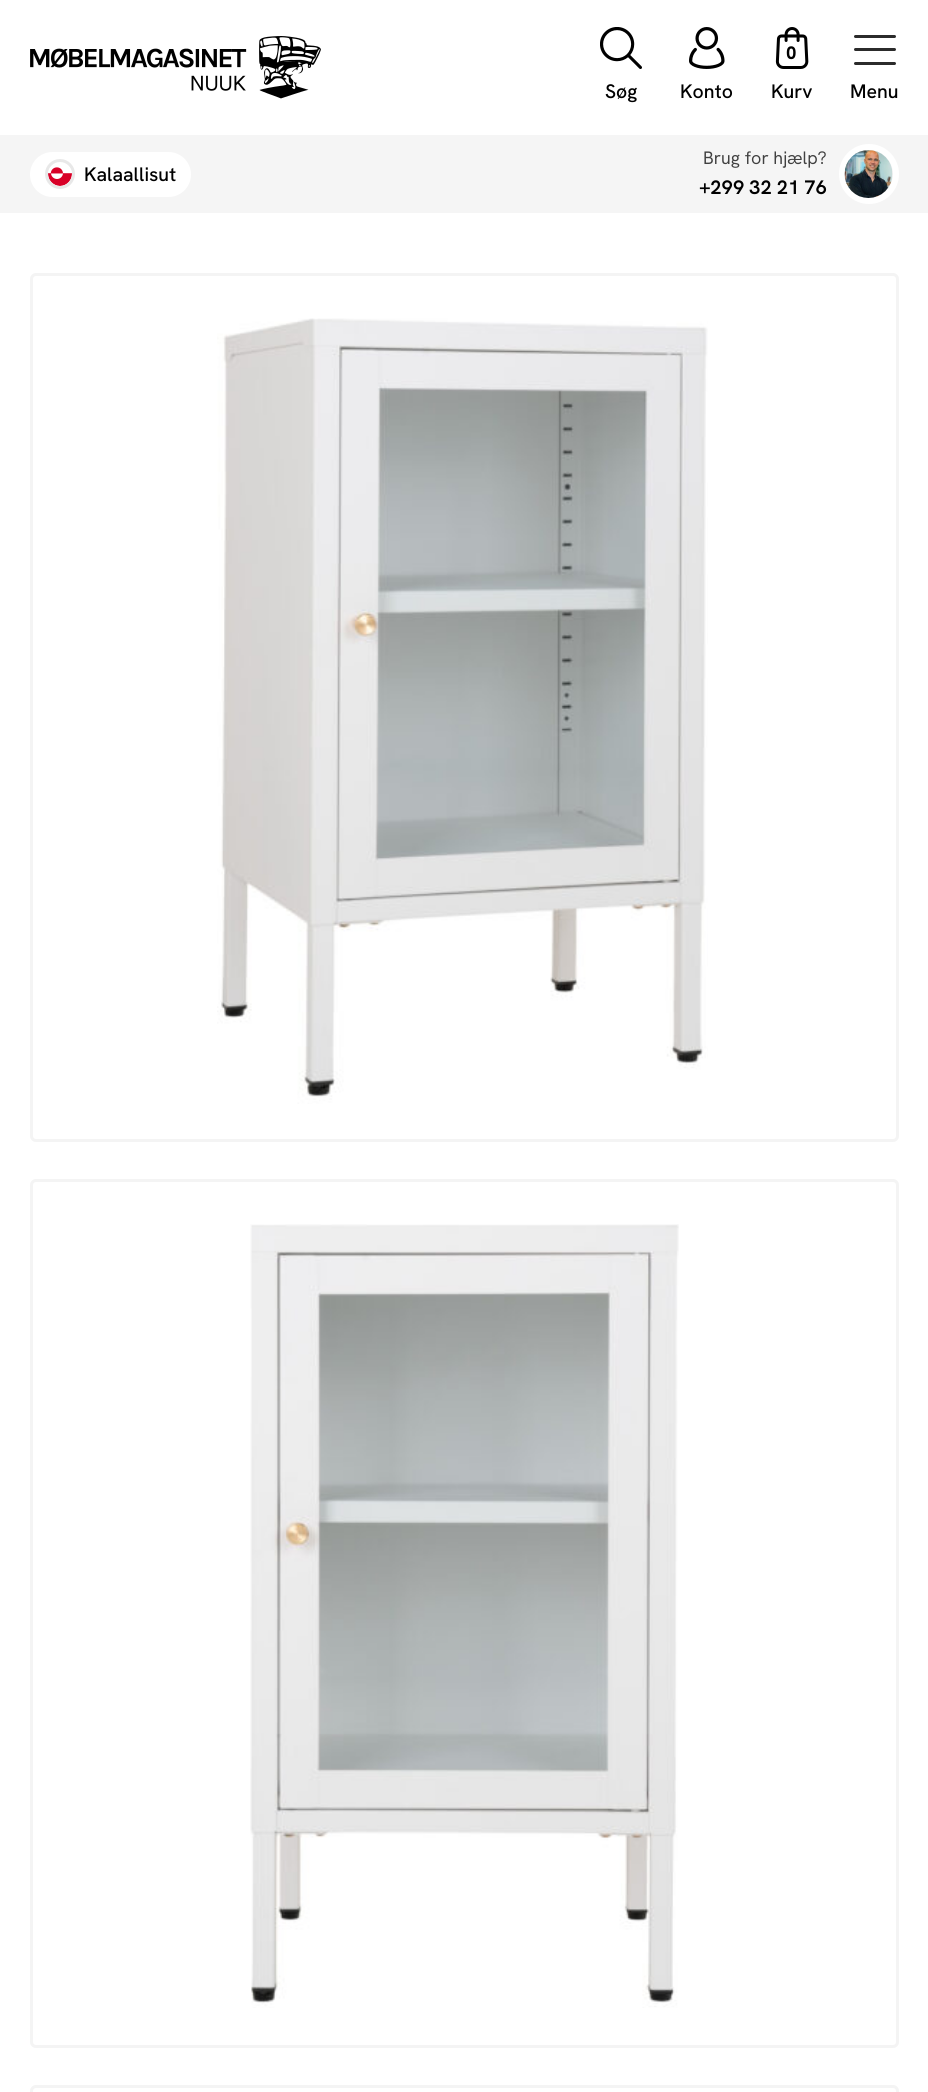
import math
import cairo

surface = cairo.ImageSurface(cairo.FORMAT_RGB24, 928, 2092)
c = cairo.Context(surface)
options = cairo.FontOptions()
options.set_hint_metrics(cairo.HINT_METRICS_OFF)
options.set_hint_style(cairo.HINT_STYLE_NONE)
c.set_font_options(options)
c.set_miter_limit(4)
def C(code):
 c.set_source_rgb(*(v / 255 for v in bytes.fromhex(code[-6:])))
def F(family, size, italic, bold):
 c.select_font_face(family, cairo.FONT_SLANT_ITALIC if italic else cairo.FONT_SLANT_NORMAL, cairo.FONT_WEIGHT_BOLD if bold else cairo.FONT_WEIGHT_NORMAL)
 c.set_font_size(size)
def T(x, y, s):
 c.move_to(x, y)
 c.show_text(s)
def R(x, y, w, h):
 c.rectangle(x, y, w, h)
 c.fill()
def Q(x, y, w, h, r):
 c.new_sub_path()
 for i, (u, v) in enumerate([(x + w - r, y + h - r), (x + r, y + h - r), (x + r, y + r), (x + w - r, y + r)]):
  c.arc(u, v, r, i * math.pi / 2, (i + 1) * math.pi / 2)
 c.close_path()
def I(path, x, y, w, h):
 c.save()
 c.set_source_surface(cairo.ImageSurface.create_from_png(path), x, y)
 c.rectangle(x, y, w, h)
 c.fill()
 c.restore()
C('f5f5f5')
c.paint()
C('ffffff')
R(0,0,928,135)
I('1.png',30,36,291,63)
I('2.png',600,27,42,42)
F('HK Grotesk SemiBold',19.5,0,0)
C('000000')
T(605,98,'Søg')
I('3.png',689,27,36,42)
T(680,98,'Konto')
I('4.png',775,27,34,42)
F('HK Grotesk ExtraBold',18,0,0)
T(786,59,'0')
F('HK Grotesk SemiBold',19.5,0,0)
T(771,98,'Kurv')
C('2b2b2b')
Q(854,35,42,3,1.5)
c.fill()
Q(854,48,42,3,1.5)
c.fill()
Q(854,62,42,3,1.5)
c.fill()
C('000000')
T(850,98,'Menu')
C('ffffff')
Q(30,152,161,45,22.5)
c.fill()
c.arc(60,174,13.5,0,2 * math.pi)
C('e8e8e8')
c.set_line_width(3)
c.stroke()
I('5.png',48,167,24,19)
C('000000')
T(84,181,'Kalaallisut')
F('HK Grotesk Medium',18,0,0)
C('404040')
T(703,164,'Brug for hjælp?')
F('HK Grotesk',19.5,0,1)
C('000000')
T(699,194,'+299 32 21 76')
c.new_path()
c.arc(869,174,27,0,2 * math.pi)
C('ffffff')
c.set_line_width(6)
c.stroke()
I('6.png',844,150,49,48)
R(0,213,928,1879)
Q(31.5,274.5,866,866,4.5)
C('f4f4f4')
c.set_line_width(3)
c.stroke()
I('7.png',217,318,491,786)
Q(31.5,1180.5,866,866,4.5)
c.stroke()
I('8.png',250,1224,429,784)
Q(31.5,2086.5,866,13,4.5)
c.stroke()
surface.write_to_png('o.png')
